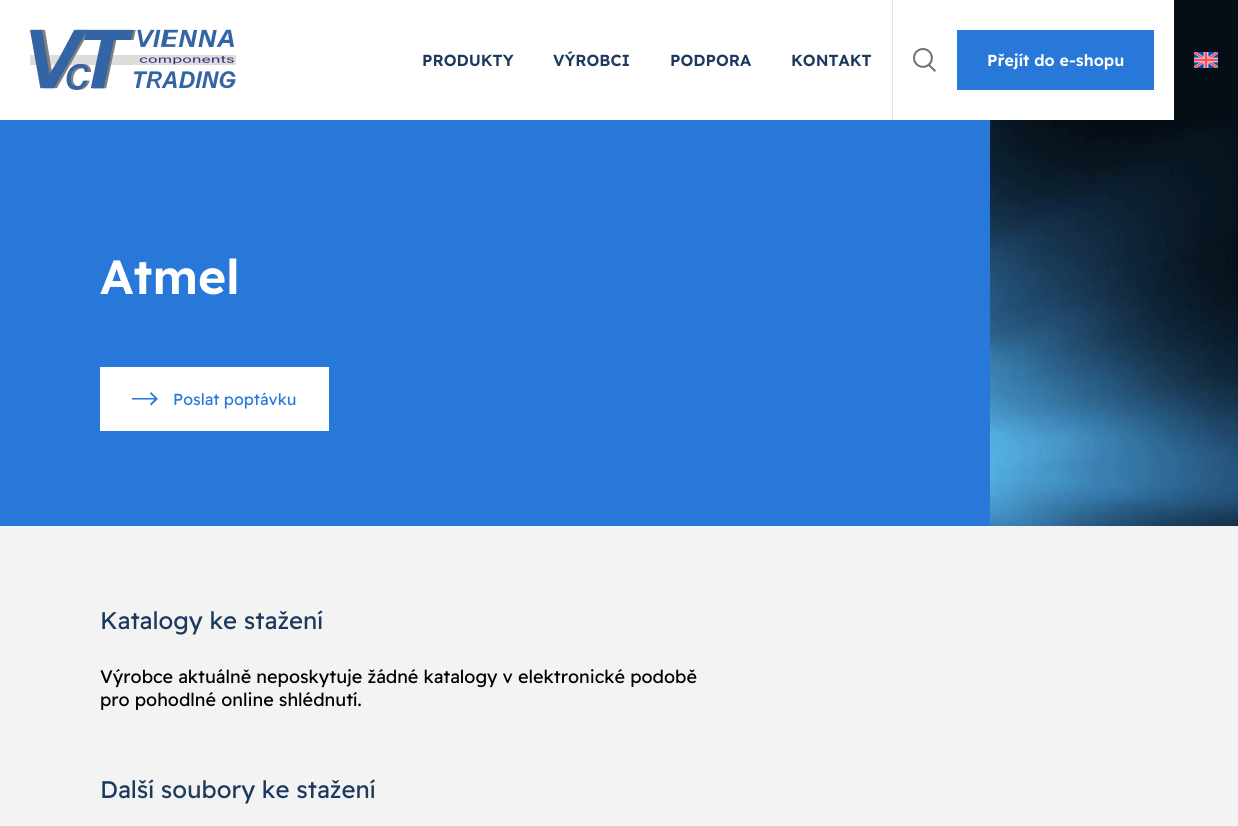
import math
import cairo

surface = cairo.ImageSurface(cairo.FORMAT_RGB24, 1238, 826)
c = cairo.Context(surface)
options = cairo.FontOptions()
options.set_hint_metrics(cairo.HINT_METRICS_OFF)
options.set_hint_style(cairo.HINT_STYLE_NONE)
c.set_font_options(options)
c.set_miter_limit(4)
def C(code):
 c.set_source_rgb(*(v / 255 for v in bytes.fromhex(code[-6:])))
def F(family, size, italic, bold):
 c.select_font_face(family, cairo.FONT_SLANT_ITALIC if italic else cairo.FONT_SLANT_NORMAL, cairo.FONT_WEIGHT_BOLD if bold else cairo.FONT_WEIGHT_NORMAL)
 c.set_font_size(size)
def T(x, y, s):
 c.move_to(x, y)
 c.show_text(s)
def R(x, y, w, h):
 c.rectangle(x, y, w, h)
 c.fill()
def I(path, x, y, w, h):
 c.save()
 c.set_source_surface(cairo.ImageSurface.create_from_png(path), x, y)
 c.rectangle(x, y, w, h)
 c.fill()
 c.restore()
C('ffffff')
c.paint()
I('1.png',30,29,206,61)
F('Readex Pro SemiBold',16,0,0)
C('1d395e')
T(422,66,'PRODUKTY')
T(553,66,'VÝROBCI')
T(670,66,'PODPORA')
T(791,66,'KONTAKT')
C('e6e6e6')
R(892,0,1,120)
I('2.png',913,48,23,24)
C('2878d9')
R(957,30,197,60)
C('ffffff')
T(987,66,'Přejít do e-shopu')
C('060e15')
R(1174,0,64,120)
I('3.png',1194,52,24,16)
I('4.png',990,120,248,406)
C('2878d9')
R(0,120,990,406)
F('Readex Pro SemiBold',48,0,0)
C('ffffff')
T(100,294,'Atmel')
R(100,367,229,64)
C('2878d9')
c.new_path()
c.move_to(158,399)
c.line_to(151,392)
c.line_to(150,393.5)
c.line_to(154.5,398)
c.line_to(132,398)
c.line_to(132,399.5)
c.line_to(154.5,399.5)
c.line_to(150,404)
c.line_to(151,405.5)
c.close_path()
c.fill()
F('Readex Pro',16,0,0)
T(173,405,'Poslat poptávku')
C('f3f3f3')
R(0,526,1238,300)
F('Readex Pro',24,0,0)
C('1d395e')
T(100,629,'Katalogy ke stažení')
F('Readex Pro',18,0,0)
C('000000')
T(100,683,'Výrobce aktuálně neposkytuje žádné katalogy v elektronické podobě')
T(100,706,'pro pohodlné online shlédnutí.')
F('Readex Pro',24,0,0)
C('1d395e')
T(100,798,'Další soubory ke stažení')
surface.write_to_png('o.png')
